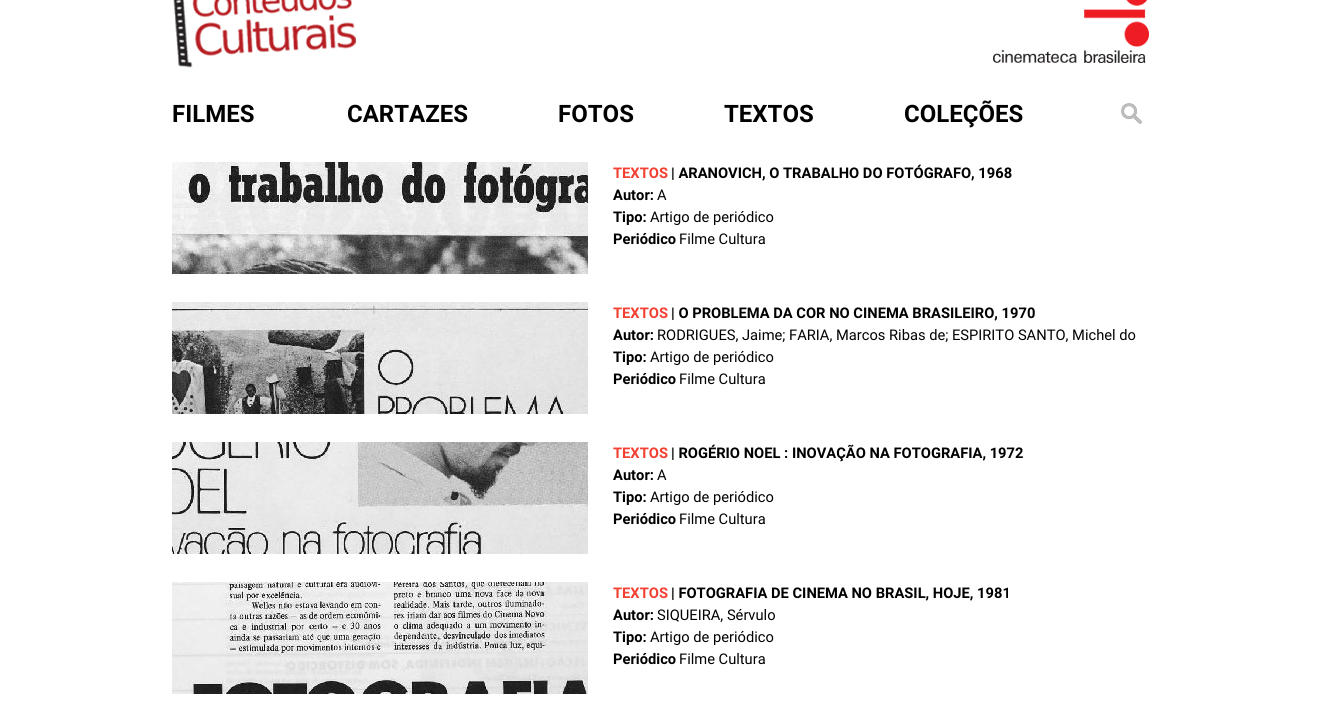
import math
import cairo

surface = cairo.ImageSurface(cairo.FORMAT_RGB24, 1323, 707)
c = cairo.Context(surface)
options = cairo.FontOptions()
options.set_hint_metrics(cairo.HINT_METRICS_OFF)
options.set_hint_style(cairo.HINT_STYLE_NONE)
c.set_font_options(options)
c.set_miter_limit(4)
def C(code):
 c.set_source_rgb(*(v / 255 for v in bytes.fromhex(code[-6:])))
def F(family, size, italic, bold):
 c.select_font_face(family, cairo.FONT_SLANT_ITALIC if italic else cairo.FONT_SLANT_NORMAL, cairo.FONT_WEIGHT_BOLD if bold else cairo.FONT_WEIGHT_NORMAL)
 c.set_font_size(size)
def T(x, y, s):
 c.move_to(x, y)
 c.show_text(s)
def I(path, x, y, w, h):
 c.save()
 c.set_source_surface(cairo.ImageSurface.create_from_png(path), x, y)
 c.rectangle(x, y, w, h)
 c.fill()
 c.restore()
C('ffffff')
c.paint()
I('1.png',173,0,183,68)
I('2.png',993,0,156,63)
F('Roboto',24,0,1)
C('000000')
T(172,122,'FILMES')
T(347,122,'CARTAZES')
T(558,122,'FOTOS')
T(724,122,'TEXTOS')
T(904,122,'COLEÇÕES')
I('3.png',1121,103,21,21)
I('4.png',172,162,416,112)
F('Roboto',14.7,0,1)
C('f34031')
T(613,178,'TEXTOS')
C('000000')
T(671,178,'| ARANOVICH, O TRABALHO DO FOTÓGRAFO, 1968')
T(613,200,'Autor:')
F('Roboto',14.7,0,0)
T(657,200,'A')
F('Roboto',14.7,0,1)
T(613,222,'Tipo:')
F('Roboto',14.7,0,0)
T(650,222,'Artigo de periódico')
F('Roboto',14.7,0,1)
T(613,244,'Periódico')
F('Roboto',14.7,0,0)
T(679,244,'Filme Cultura')
I('5.png',172,302,416,112)
F('Roboto',14.7,0,1)
C('f34031')
T(613,318,'TEXTOS')
C('000000')
T(671,318,'| O PROBLEMA DA COR NO CINEMA BRASILEIRO, 1970')
T(613,340,'Autor:')
F('Roboto',14.7,0,0)
T(657,340,'RODRIGUES, Jaime; FARIA, Marcos Ribas de; ESPIRITO SANTO, Michel do')
F('Roboto',14.7,0,1)
T(613,362,'Tipo:')
F('Roboto',14.7,0,0)
T(650,362,'Artigo de periódico')
F('Roboto',14.7,0,1)
T(613,384,'Periódico')
F('Roboto',14.7,0,0)
T(679,384,'Filme Cultura')
I('6.png',172,442,416,112)
F('Roboto',14.7,0,1)
C('f34031')
T(613,458,'TEXTOS')
C('000000')
T(671,458,'| ROGÉRIO NOEL : INOVAÇÃO NA FOTOGRAFIA, 1972')
T(613,480,'Autor:')
F('Roboto',14.7,0,0)
T(657,480,'A')
F('Roboto',14.7,0,1)
T(613,502,'Tipo:')
F('Roboto',14.7,0,0)
T(650,502,'Artigo de periódico')
F('Roboto',14.7,0,1)
T(613,524,'Periódico')
F('Roboto',14.7,0,0)
T(679,524,'Filme Cultura')
I('7.png',172,582,416,112)
F('Roboto',14.7,0,1)
C('f34031')
T(613,598,'TEXTOS')
C('000000')
T(671,598,'| FOTOGRAFIA DE CINEMA NO BRASIL, HOJE, 1981')
T(613,620,'Autor:')
F('Roboto',14.7,0,0)
T(657,620,'SIQUEIRA, Sérvulo')
F('Roboto',14.7,0,1)
T(613,642,'Tipo:')
F('Roboto',14.7,0,0)
T(650,642,'Artigo de periódico')
F('Roboto',14.7,0,1)
T(613,664,'Periódico')
F('Roboto',14.7,0,0)
T(679,664,'Filme Cultura')
surface.write_to_png('o.png')
